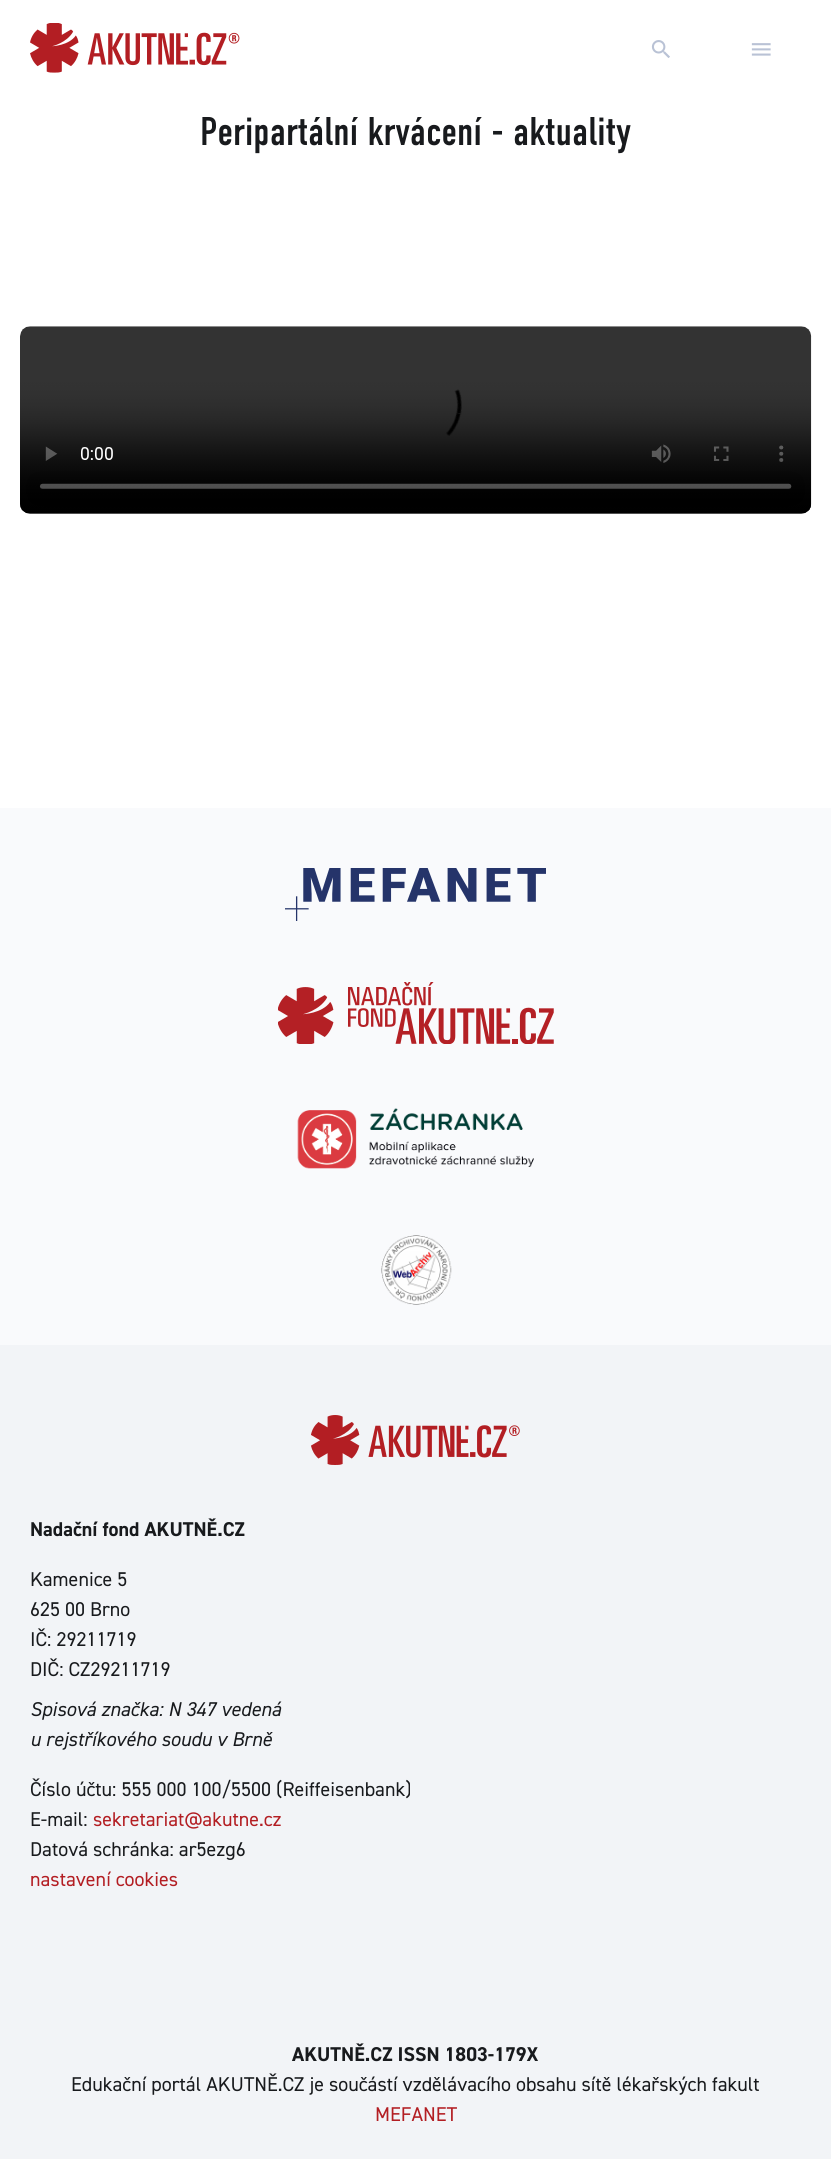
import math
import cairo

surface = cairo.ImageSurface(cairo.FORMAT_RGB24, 831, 2159)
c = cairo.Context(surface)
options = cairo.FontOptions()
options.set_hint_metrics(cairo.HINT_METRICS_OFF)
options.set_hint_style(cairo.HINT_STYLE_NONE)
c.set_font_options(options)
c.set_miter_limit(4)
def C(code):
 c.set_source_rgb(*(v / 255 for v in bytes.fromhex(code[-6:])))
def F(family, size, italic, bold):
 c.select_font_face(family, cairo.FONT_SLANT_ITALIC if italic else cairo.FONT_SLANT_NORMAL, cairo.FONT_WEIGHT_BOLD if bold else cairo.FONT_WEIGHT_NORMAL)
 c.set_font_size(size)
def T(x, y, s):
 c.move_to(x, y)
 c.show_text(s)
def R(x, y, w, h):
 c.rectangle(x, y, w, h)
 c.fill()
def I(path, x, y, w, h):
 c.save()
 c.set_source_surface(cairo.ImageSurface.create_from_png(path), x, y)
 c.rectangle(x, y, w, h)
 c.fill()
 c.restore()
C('ffffff')
c.paint()
I('1.png',30,23,210,50)
I('2.png',651,40,19,18)
I('3.png',751,43,20,13)
F('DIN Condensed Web',40,0,0)
C('181a1d')
T(200,145,'Peripartální krvácení - aktuality')
I('4.png',20,326,792,188)
C('f9fafc')
R(0,808,831,537)
I('5.png',285,868,261,53)
I('6.png',278,982,276,62)
I('7.png',297,1108,237,61)
I('8.png',381,1235,71,70)
C('f2f4f7')
R(0,1345,831,814)
I('9.png',311,1415,209,50)
F('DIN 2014',20,0,1)
C('181a1d')
T(30,1536,'Nadační fond AKUTNĚ.CZ')
F('DIN 2014',20,0,0)
T(30,1586,'Kamenice 5')
T(30,1616,'625 00 Brno')
T(30,1646,'IČ: 29211719')
T(30,1676,'DIČ: CZ29211719')
F('DIN 2014',20,1,0)
T(30,1716,'Spisová značka: N 347 vedená')
T(30,1746,'u rejstříkového soudu v Brně')
F('DIN 2014',20,0,0)
T(30,1796,'Číslo účtu: 555 000 100/5500 (Reiffeisenbank)')
T(30,1826,'E-mail:')
C('b31e23')
T(93,1826,'sekretariat@akutne.cz')
C('181a1d')
T(30,1856,'Datová schránka: ar5ezg6')
C('b31e23')
T(30,1886,'nastavení cookies')
F('DIN 2014',20,0,1)
C('181a1d')
T(292,2061,'AKUTNĚ.CZ ISSN 1803‑179X')
F('DIN 2014',20,0,0)
T(71,2091,'Edukační portál AKUTNĚ.CZ je součástí vzdělávacího obsahu sítě lékařských fakult')
C('b31e23')
T(375,2121,'MEFANET')
surface.write_to_png('o.png')
